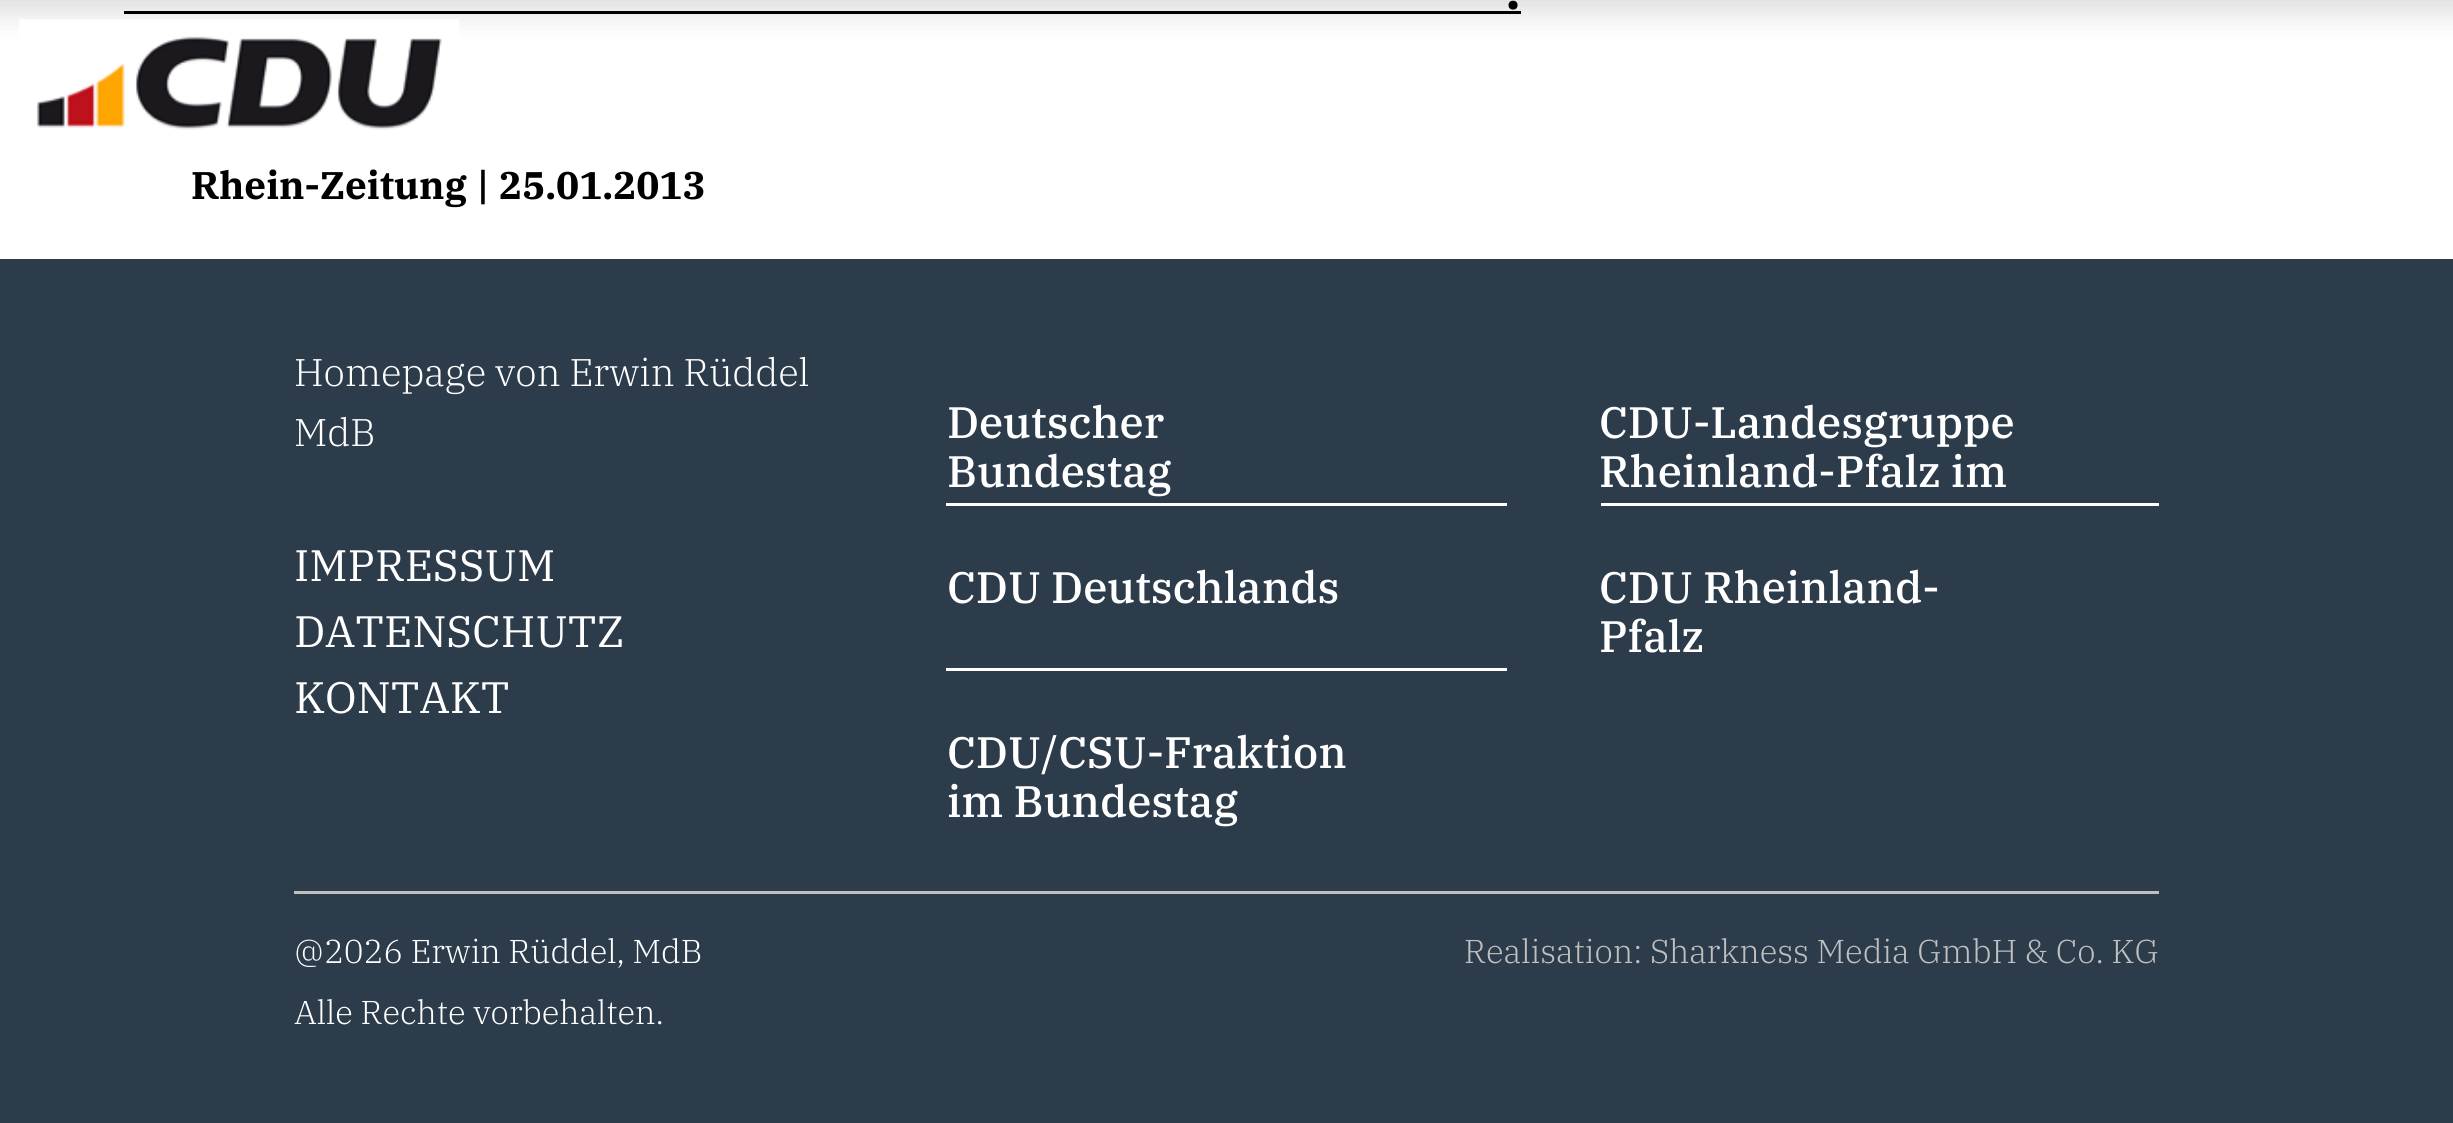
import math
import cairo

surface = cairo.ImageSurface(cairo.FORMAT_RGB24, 2453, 1123)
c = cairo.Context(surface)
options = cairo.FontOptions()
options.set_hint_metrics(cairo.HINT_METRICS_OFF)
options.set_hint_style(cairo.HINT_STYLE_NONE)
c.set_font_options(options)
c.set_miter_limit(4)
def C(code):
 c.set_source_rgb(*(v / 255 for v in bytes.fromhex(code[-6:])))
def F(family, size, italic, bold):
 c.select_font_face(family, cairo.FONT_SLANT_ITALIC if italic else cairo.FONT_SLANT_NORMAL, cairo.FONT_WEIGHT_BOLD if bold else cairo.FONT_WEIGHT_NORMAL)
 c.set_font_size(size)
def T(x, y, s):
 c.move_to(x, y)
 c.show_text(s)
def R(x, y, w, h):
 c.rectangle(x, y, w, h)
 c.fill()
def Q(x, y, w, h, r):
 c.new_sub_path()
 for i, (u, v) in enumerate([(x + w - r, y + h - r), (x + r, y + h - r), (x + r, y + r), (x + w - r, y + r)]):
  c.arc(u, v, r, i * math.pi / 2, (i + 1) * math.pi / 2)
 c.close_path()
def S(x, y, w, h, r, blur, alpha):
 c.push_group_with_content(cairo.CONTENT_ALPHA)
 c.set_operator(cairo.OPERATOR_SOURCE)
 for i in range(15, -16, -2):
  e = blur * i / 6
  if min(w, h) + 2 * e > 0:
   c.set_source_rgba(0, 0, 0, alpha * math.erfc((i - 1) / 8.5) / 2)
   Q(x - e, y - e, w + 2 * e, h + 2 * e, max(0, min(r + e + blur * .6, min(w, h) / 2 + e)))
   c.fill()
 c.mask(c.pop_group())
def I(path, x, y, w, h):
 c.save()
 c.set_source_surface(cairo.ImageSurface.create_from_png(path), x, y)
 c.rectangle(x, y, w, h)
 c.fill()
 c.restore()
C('ffffff')
c.paint()
C('000000')
R(124,11,1397,3)
C('000000')
S(-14,-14,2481,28,0,14,.13)
I('1.png',19,19,440,111)
F('IBM Plex Serif',50,0,1)
C('000000')
T(1506,9,'.')
F('IBM Plex Serif',38.5,0,1)
T(191,199,'Rhein-Zeitung | 25.01.2013')
C('2d3c4b')
R(0,259,2453,864)
F('IBM Plex Serif Light',38.5,0,0)
C('ffffff')
T(294,386,'Homepage von Erwin Rüddel')
T(294,446,'MdB')
F('IBM Plex Serif',44,0,0)
T(294,581,'IMPRESSUM')
T(294,647,'DATENSCHUTZ')
T(294,713,'KONTAKT')
R(946,503,561,3)
F('IBM Plex Serif Medium',44,0,0)
T(947,438,'Deutscher')
T(947,487,'Bundestag')
R(946,668,561,3)
T(947,603,'CDU Deutschlands')
T(947,768,'CDU/CSU-Fraktion')
T(947,817,'im Bundestag')
R(1601,503,558,3)
T(1599,438,'CDU-Landesgruppe')
T(1599,487,'Rheinland-Pfalz im')
T(1599,603,'CDU Rheinland-')
T(1599,652,'Pfalz')
C('c0c0c0')
R(294,891,1865,3)
F('IBM Plex Serif Light',33,0,0)
C('ffffff')
T(294,963,'@2026 Erwin Rüddel, MdB')
T(294,1024,'Alle Rechte vorbehalten.')
C('c0c0c0')
T(1464,963,'Realisation: Sharkness Media GmbH & Co. KG')
surface.write_to_png('o.png')
